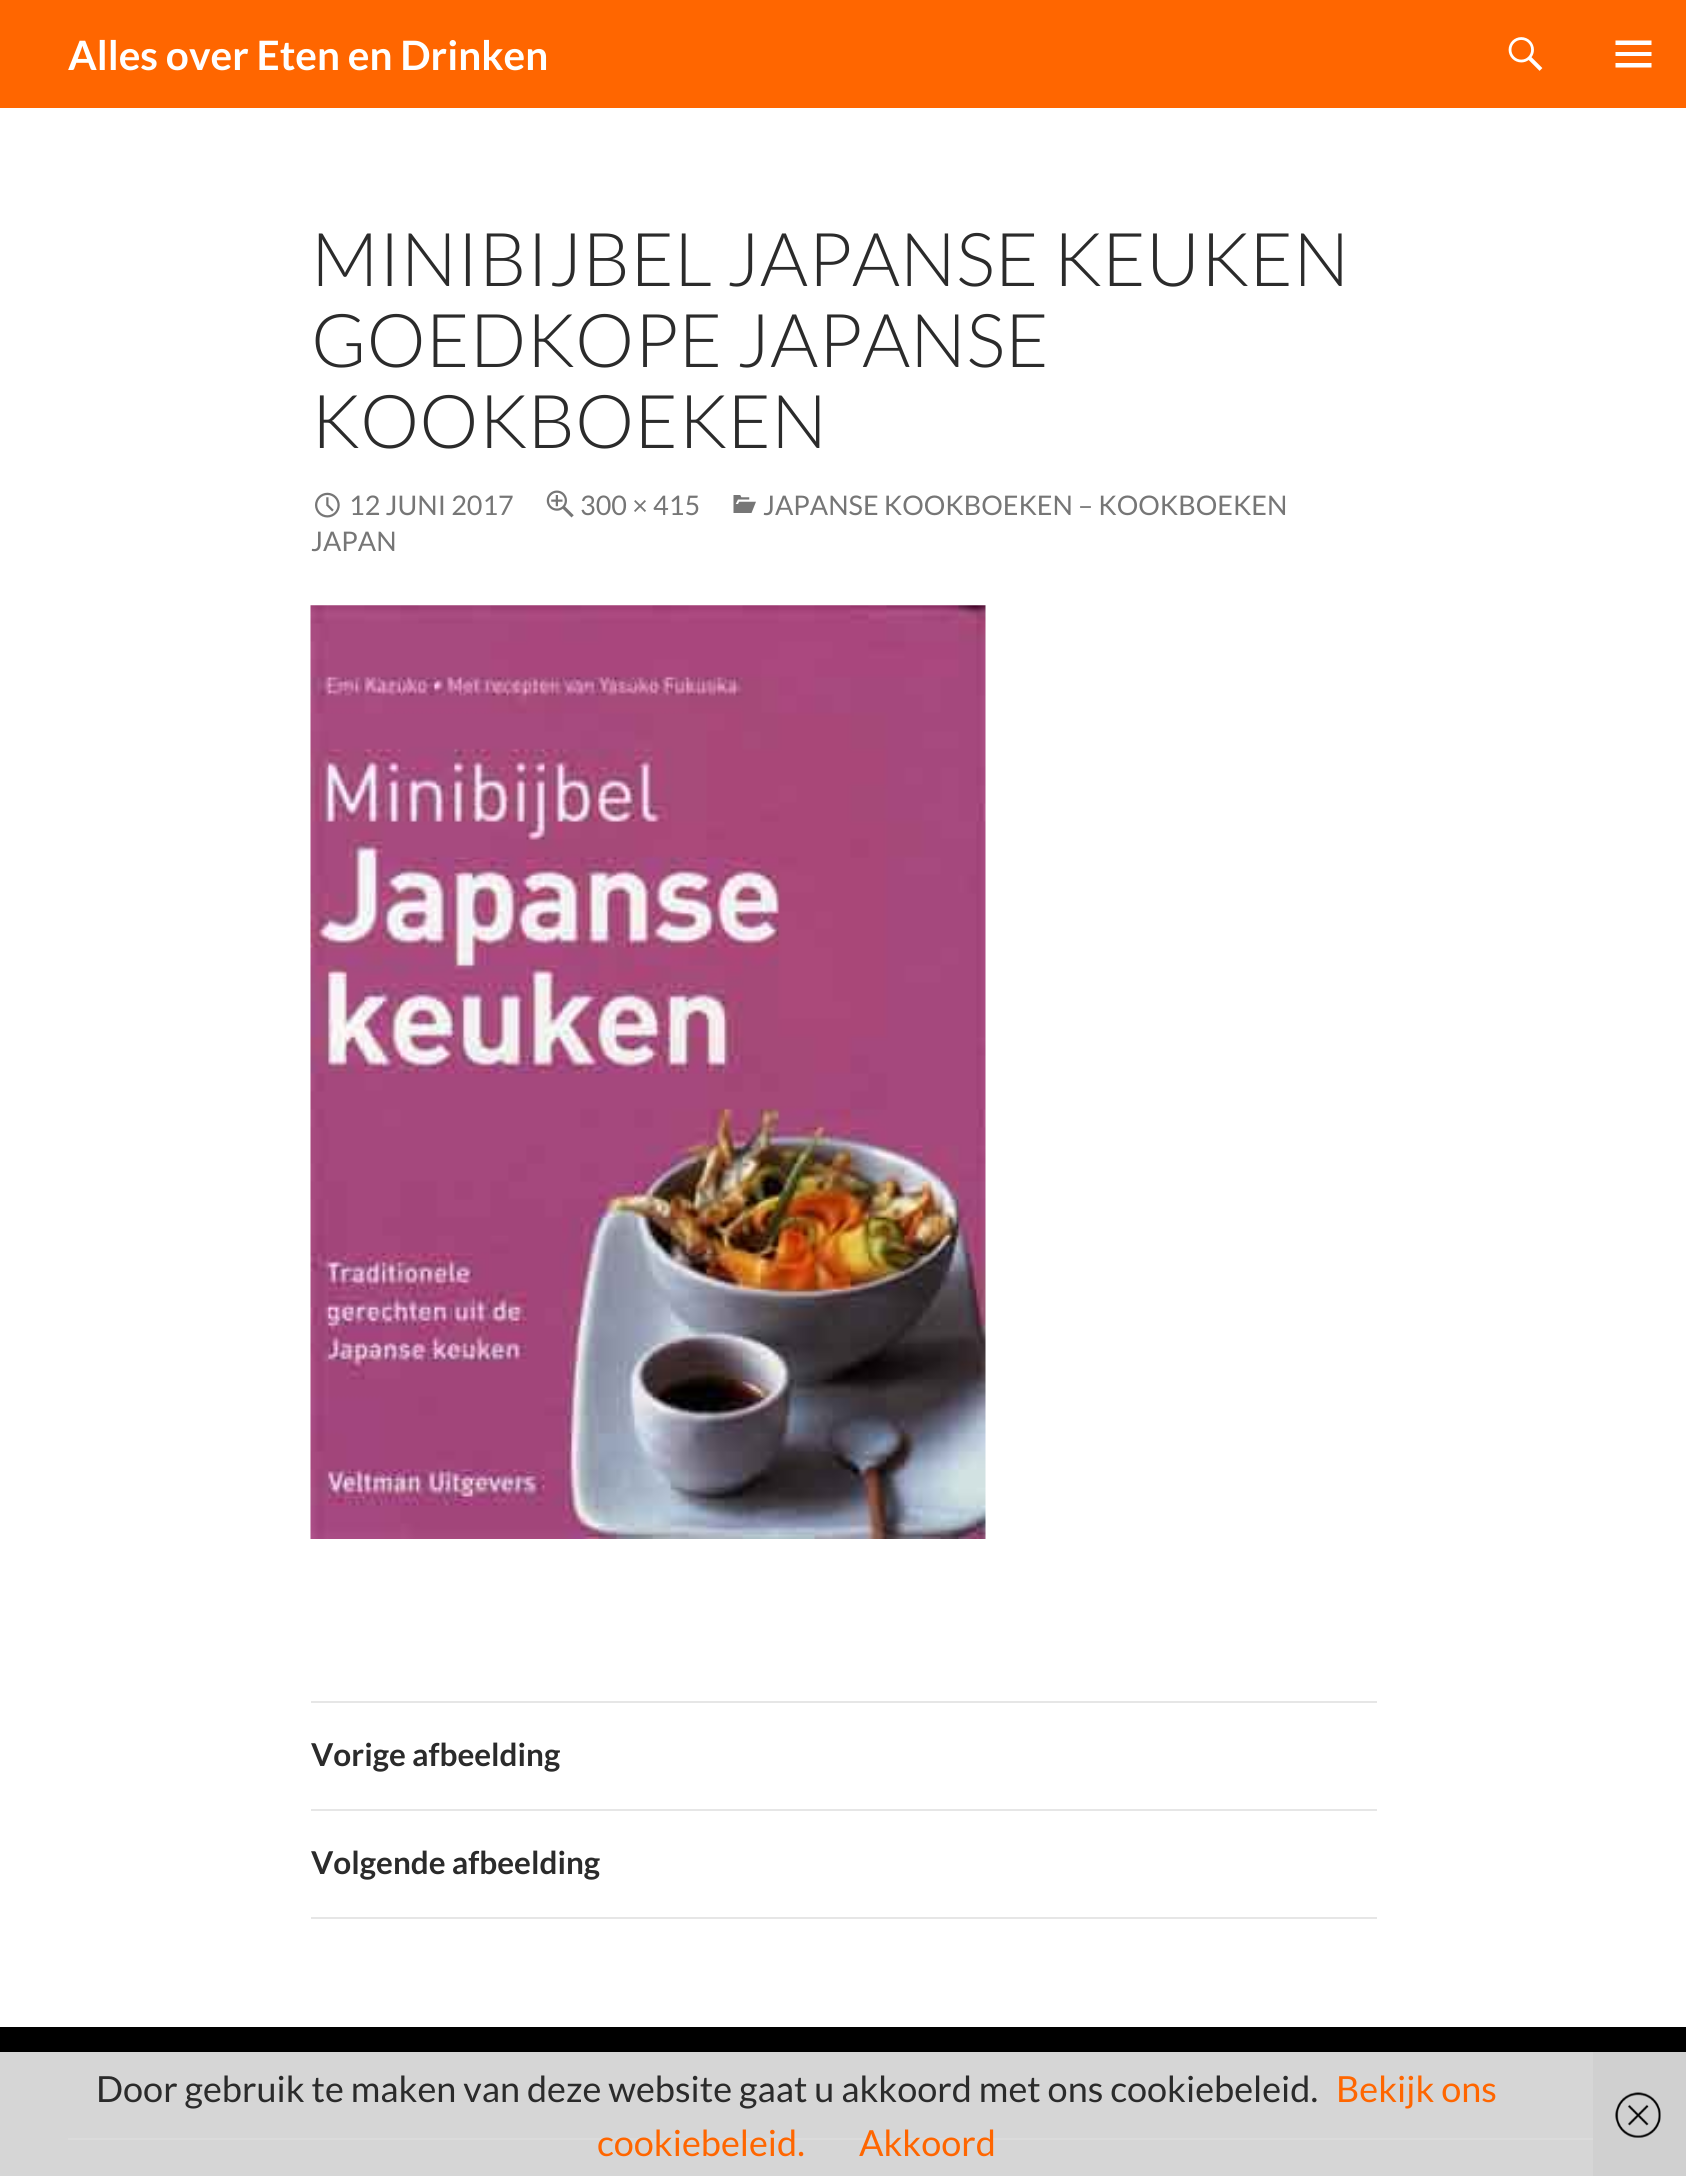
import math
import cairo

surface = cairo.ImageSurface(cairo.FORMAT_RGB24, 1686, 2176)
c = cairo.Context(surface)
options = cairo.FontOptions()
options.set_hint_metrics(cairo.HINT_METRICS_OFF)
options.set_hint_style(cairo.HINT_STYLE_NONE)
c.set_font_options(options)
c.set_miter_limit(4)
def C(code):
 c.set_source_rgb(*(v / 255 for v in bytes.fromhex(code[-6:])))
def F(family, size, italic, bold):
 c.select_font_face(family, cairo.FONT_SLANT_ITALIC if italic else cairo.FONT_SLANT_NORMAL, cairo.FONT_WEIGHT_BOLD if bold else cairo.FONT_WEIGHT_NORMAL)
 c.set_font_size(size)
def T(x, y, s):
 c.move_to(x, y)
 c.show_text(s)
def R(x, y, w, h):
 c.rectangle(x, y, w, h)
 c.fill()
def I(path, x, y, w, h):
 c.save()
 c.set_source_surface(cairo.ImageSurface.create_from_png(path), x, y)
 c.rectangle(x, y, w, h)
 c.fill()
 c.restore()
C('ffffff')
c.paint()
C('ff6600')
R(0,0,1686,108)
F('Lato',40.5,0,1)
C('ffffff')
T(68,70,'Alles over Eten en Drinken')
I('1.png',1508,37,35,34)
c.new_path()
c.move_to(1615.5,67.5)
c.line_to(1615.5,63)
c.line_to(1651.5,63)
c.line_to(1651.5,67.5)
c.close_path()
c.move_to(1615.5,56)
c.line_to(1615.5,52)
c.line_to(1651.5,52)
c.line_to(1651.5,56)
c.close_path()
c.move_to(1615.5,45)
c.line_to(1615.5,40.5)
c.line_to(1651.5,40.5)
c.line_to(1651.5,45)
c.close_path()
c.fill()
F('Lato Light',74.25,0,0)
C('2b2b2b')
T(311,286,'MINIBIJBEL JAPANSE KEUKEN')
T(311,367,'GOEDKOPE JAPANSE')
T(311,448,'KOOKBOEKEN')
I('2.png',733,495,23,18)
F('Lato',27,0,0)
C('767676')
T(763,515,'JAPANSE KOOKBOEKEN – KOOKBOEKEN')
T(311,551,'JAPAN')
I('3.png',315,492,25,26)
T(349,515,'12 JUNI 2017')
I('4.png',546,490,28,28)
T(580,515,'300 × 415')
I('5.png',310,605,676,934)
C('e6e6e6')
R(311,1701,1066,2)
R(311,1809,1066,2)
F('Lato',31.5,0,1)
C('2b2b2b')
T(311,1766,'Vorige afbeelding')
C('e6e6e6')
R(311,1917,1066,2)
C('2b2b2b')
T(311,1874,'Volgende afbeelding')
C('000000')
R(0,2027,1686,25)
C('d6d6d6')
R(0,2052,1593,124)
C('d0d0d0')
R(1593,2052,93,124)
C('dbdbdb')
R(68,2138,1525,2)
F('Lato',36,0,0)
C('2b2b2b')
T(96,2102,'Door gebruik te maken van deze website gaat u akkoord met ons cookiebeleid.')
C('ff6600')
T(1336,2102,'Bekijk ons')
T(597,2156,'cookiebeleid.')
T(859,2156,'Akkoord')
I('6.png',1615,2092,46,46)
surface.write_to_png('o.png')
